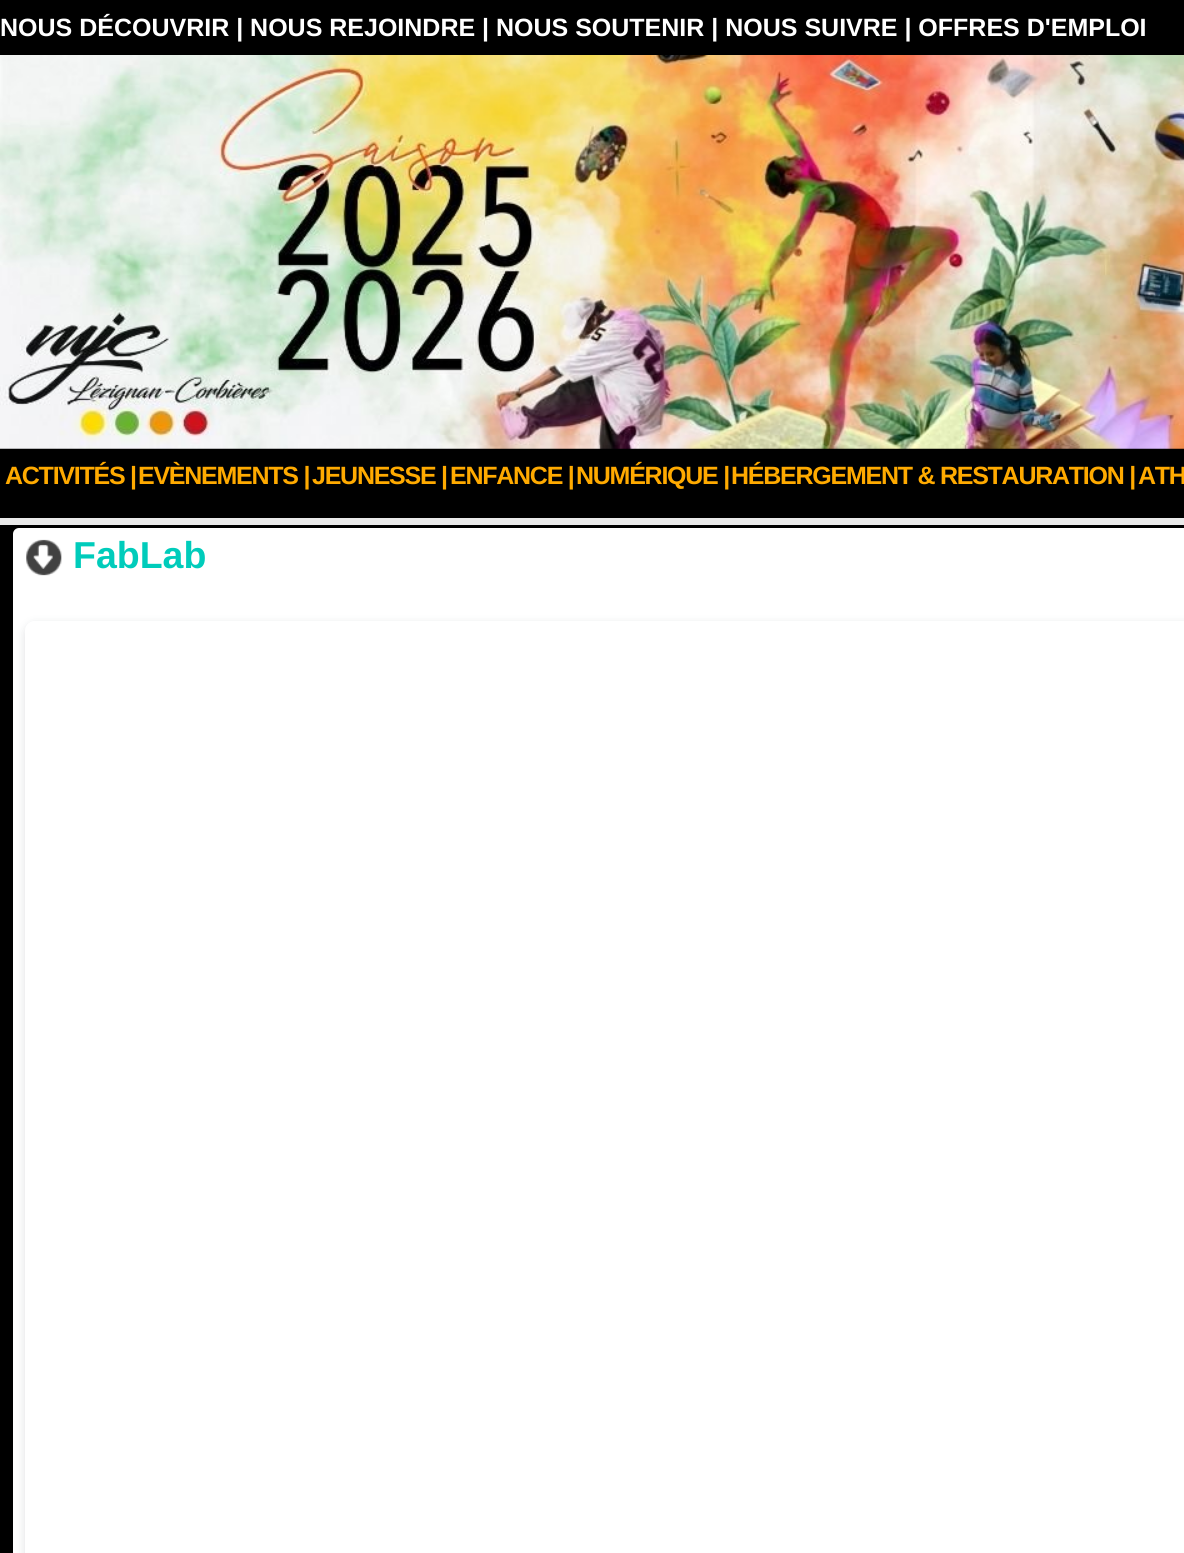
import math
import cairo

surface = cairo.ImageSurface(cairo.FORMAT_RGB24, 1184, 1553)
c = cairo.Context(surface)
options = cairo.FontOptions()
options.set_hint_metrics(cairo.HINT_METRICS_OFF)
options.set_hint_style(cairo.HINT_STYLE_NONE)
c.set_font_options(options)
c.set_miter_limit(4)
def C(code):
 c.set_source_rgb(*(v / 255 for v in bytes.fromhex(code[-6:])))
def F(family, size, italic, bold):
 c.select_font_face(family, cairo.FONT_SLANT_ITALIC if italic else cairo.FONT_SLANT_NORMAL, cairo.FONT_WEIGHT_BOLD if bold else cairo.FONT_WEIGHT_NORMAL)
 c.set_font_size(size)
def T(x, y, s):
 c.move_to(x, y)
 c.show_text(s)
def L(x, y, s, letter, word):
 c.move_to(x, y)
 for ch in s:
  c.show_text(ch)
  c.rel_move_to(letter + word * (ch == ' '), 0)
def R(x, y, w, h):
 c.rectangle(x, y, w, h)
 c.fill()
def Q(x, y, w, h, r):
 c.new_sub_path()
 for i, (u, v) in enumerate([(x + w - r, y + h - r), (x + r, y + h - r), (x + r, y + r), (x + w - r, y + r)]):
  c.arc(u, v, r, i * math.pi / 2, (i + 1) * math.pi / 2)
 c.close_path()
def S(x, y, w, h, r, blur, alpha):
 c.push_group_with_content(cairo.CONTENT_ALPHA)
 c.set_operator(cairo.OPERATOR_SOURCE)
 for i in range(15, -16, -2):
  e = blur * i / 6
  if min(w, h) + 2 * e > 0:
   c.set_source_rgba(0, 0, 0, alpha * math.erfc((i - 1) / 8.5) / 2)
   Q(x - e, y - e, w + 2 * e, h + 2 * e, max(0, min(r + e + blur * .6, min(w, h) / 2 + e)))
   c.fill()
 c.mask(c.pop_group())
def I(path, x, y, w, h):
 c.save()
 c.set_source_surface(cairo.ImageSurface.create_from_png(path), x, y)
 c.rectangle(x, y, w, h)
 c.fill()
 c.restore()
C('000000')
c.paint()
F('Liberation Sans',25,0,1)
C('ffffff')
T(0,36,'NOUS DÉCOUVRIR | NOUS REJOINDRE | NOUS SOUTENIR | NOUS SUIVRE | OFFRES D\'EMPLOI')
I('1.png',0,55,1184,394)
C('ffaa00')
L(5,484,'ACTIVITÉS |',-1.25,0)
L(138,484,'EVÈNEMENTS |',-1.25,0)
L(312,484,'JEUNESSE |',-1.25,0)
L(450,484,'ENFANCE |',-1.25,0)
L(576,484,'NUMÉRIQUE |',-1.25,0)
L(731,484,'HÉBERGEMENT & RESTAURATION |',-1.25,0)
L(1138,484,'ATH',-1.25,0)
C('eaeaea')
R(0,518,1184,7)
C('ffffff')
Q(13,528,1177,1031,6)
c.fill()
I('2.png',26,539,36,37)
F('Liberation Sans',37.5,0,1)
C('00ccbb')
T(73,568,'FabLab')
c.save()
c.set_fill_rule(cairo.FILL_RULE_EVEN_ODD)
c.new_path()
c.move_to(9,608)
c.line_to(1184,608)
c.line_to(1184,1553)
c.line_to(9,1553)
c.close_path()
c.move_to(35,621)
c.line_to(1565,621)
c.curve_to(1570.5,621,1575,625.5,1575,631)
c.line_to(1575,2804)
c.curve_to(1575,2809.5,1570.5,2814,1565,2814)
c.line_to(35,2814)
c.curve_to(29.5,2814,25,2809.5,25,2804)
c.line_to(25,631)
c.curve_to(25,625.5,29.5,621,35,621)
c.close_path()
c.clip()
C('3f4551')
S(25,624,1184,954,10,5,.16)
c.restore()
surface.write_to_png('o.png')
